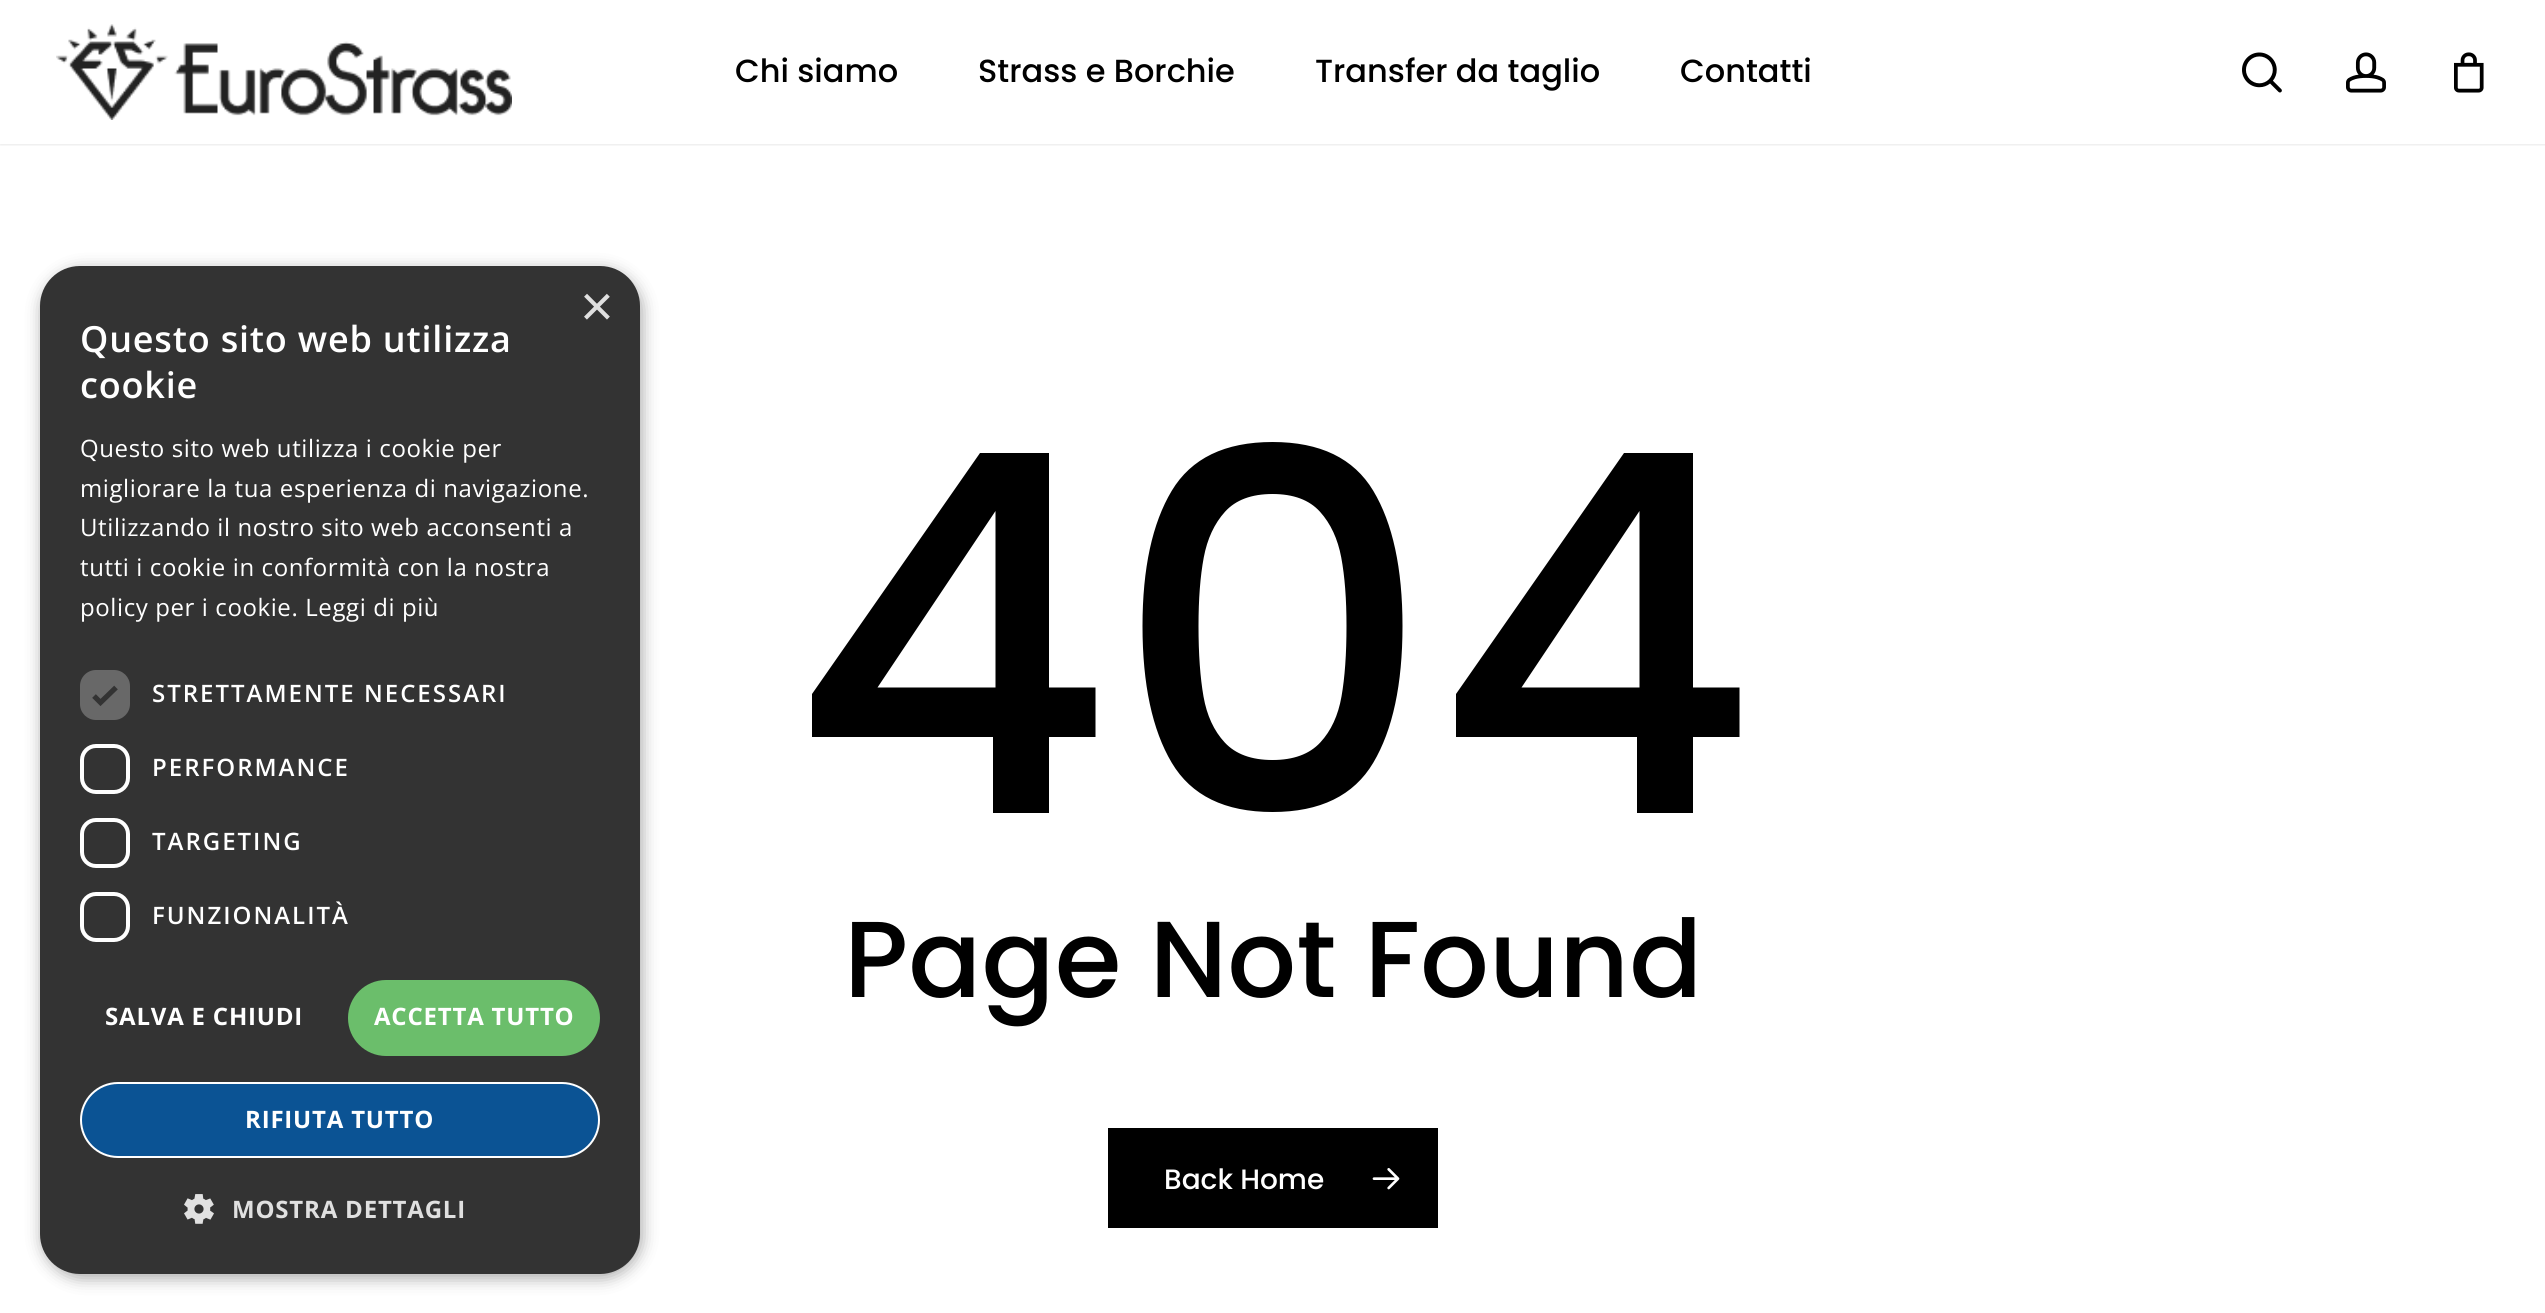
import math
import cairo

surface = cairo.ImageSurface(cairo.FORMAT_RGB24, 2545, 1313)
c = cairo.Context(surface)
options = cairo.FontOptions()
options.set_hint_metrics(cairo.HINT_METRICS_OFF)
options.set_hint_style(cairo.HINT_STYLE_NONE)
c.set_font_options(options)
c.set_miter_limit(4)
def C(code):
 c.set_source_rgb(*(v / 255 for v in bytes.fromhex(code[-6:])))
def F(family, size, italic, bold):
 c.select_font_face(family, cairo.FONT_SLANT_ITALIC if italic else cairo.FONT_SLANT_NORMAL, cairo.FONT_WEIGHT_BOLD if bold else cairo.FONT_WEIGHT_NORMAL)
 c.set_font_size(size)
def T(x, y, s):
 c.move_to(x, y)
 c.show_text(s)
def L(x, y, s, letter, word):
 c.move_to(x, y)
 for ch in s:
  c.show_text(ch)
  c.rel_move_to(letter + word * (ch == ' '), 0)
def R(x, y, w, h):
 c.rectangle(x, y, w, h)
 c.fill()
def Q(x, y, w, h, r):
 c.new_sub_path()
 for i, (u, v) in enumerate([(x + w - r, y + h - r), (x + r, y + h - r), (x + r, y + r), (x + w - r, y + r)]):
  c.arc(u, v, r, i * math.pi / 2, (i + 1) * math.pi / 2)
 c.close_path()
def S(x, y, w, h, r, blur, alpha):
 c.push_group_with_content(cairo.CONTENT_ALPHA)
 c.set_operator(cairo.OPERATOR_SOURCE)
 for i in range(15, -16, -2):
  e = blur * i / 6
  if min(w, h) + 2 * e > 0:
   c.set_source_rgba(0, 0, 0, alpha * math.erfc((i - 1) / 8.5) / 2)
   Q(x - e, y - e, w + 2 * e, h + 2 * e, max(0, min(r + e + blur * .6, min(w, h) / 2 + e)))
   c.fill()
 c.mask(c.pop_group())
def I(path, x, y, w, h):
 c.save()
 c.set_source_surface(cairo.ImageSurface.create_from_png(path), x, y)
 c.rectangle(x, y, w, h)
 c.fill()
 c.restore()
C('ffffff')
c.paint()
C('000000')
S(42,270,600,1008,40,8,.35)
C('333333')
Q(40,266,600,1008,40)
c.fill()
F('Liberation Sans',58,0,0)
C('e0e0e0')
T(580,326,'×')
F('Open Sans SemiBold',36,0,0)
C('ffffff')
L(80,352,'Questo sito web utilizza',.8,0)
L(80,398,'cookie',.8,0)
F('Open Sans',24,0,0)
L(80,457,'Questo sito web utilizza i cookie per',.6,0)
L(80,497,'migliorare la tua esperienza di navigazione.',.6,0)
L(80,536,'Utilizzando il nostro sito web acconsenti a',.6,0)
L(80,576,'tutti i cookie in conformità con la nostra',.6,0)
L(80,616,'policy per i cookie. Leggi di più',.6,0)
C('686868')
Q(80,670,50,50,16)
c.fill()
c.new_path()
c.move_to(94,696)
c.line_to(100.5,702.5)
c.line_to(116,687.5)
C('333333')
c.set_line_width(5.2)
c.stroke()
F('Open Sans SemiBold',24,0,0)
C('ffffff')
L(152,702,'STRETTAMENTE NECESSARI',2,0)
Q(82,746,46,46,14)
c.set_line_width(4)
c.stroke()
L(152,776,'PERFORMANCE',2,0)
Q(82,820,46,46,14)
c.stroke()
L(152,850,'TARGETING',2,0)
Q(82,894,46,46,14)
c.stroke()
L(152,924,'FUNZIONALITÀ',2,0)
F('Open Sans',24,0,1)
L(105,1025,'SALVA E CHIUDI',.8,0)
C('6bbe6b')
Q(348,980,252,76,38)
c.fill()
C('ffffff')
L(374,1025,'ACCETTA TUTTO',.8,0)
C('0b5394')
Q(81,1083,518,74,37)
c.fill_preserve()
C('ffffff')
c.set_line_width(2)
c.stroke()
L(245,1128,'RIFIUTA TUTTO',.8,0)
I('1.png',184,1194,30,30)
C('e0e0e0')
L(232,1218,'MOSTRA DETTAGLI',.8,0)
c.save()
c.rectangle(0,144,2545,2)
c.clip()
C('000000')
S(0,-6,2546,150,0,2,.14)
c.restore()
I('2.png',56,24,456,96)
F('Poppins Medium',32,0,0)
C('000000')
T(735,82,'Chi siamo')
T(978,82,'Strass e Borchie')
T(1315,82,'Transfer da taglio')
T(1680,82,'Contatti')
I('3.png',2242,52,40,41)
I('4.png',2346,52,40,41)
I('5.png',2454,52,30,41)
F('Poppins Medium',500,0,0)
T(789,813,'404')
F('Poppins Medium',108,0,0)
T(844,997,'Page Not Found')
R(1108,1128,330,100)
F('Poppins Medium',28,0,0)
C('ffffff')
T(1164,1189,'Back Home')
I('6.png',1372,1168,28,22)
surface.write_to_png('o.png')
